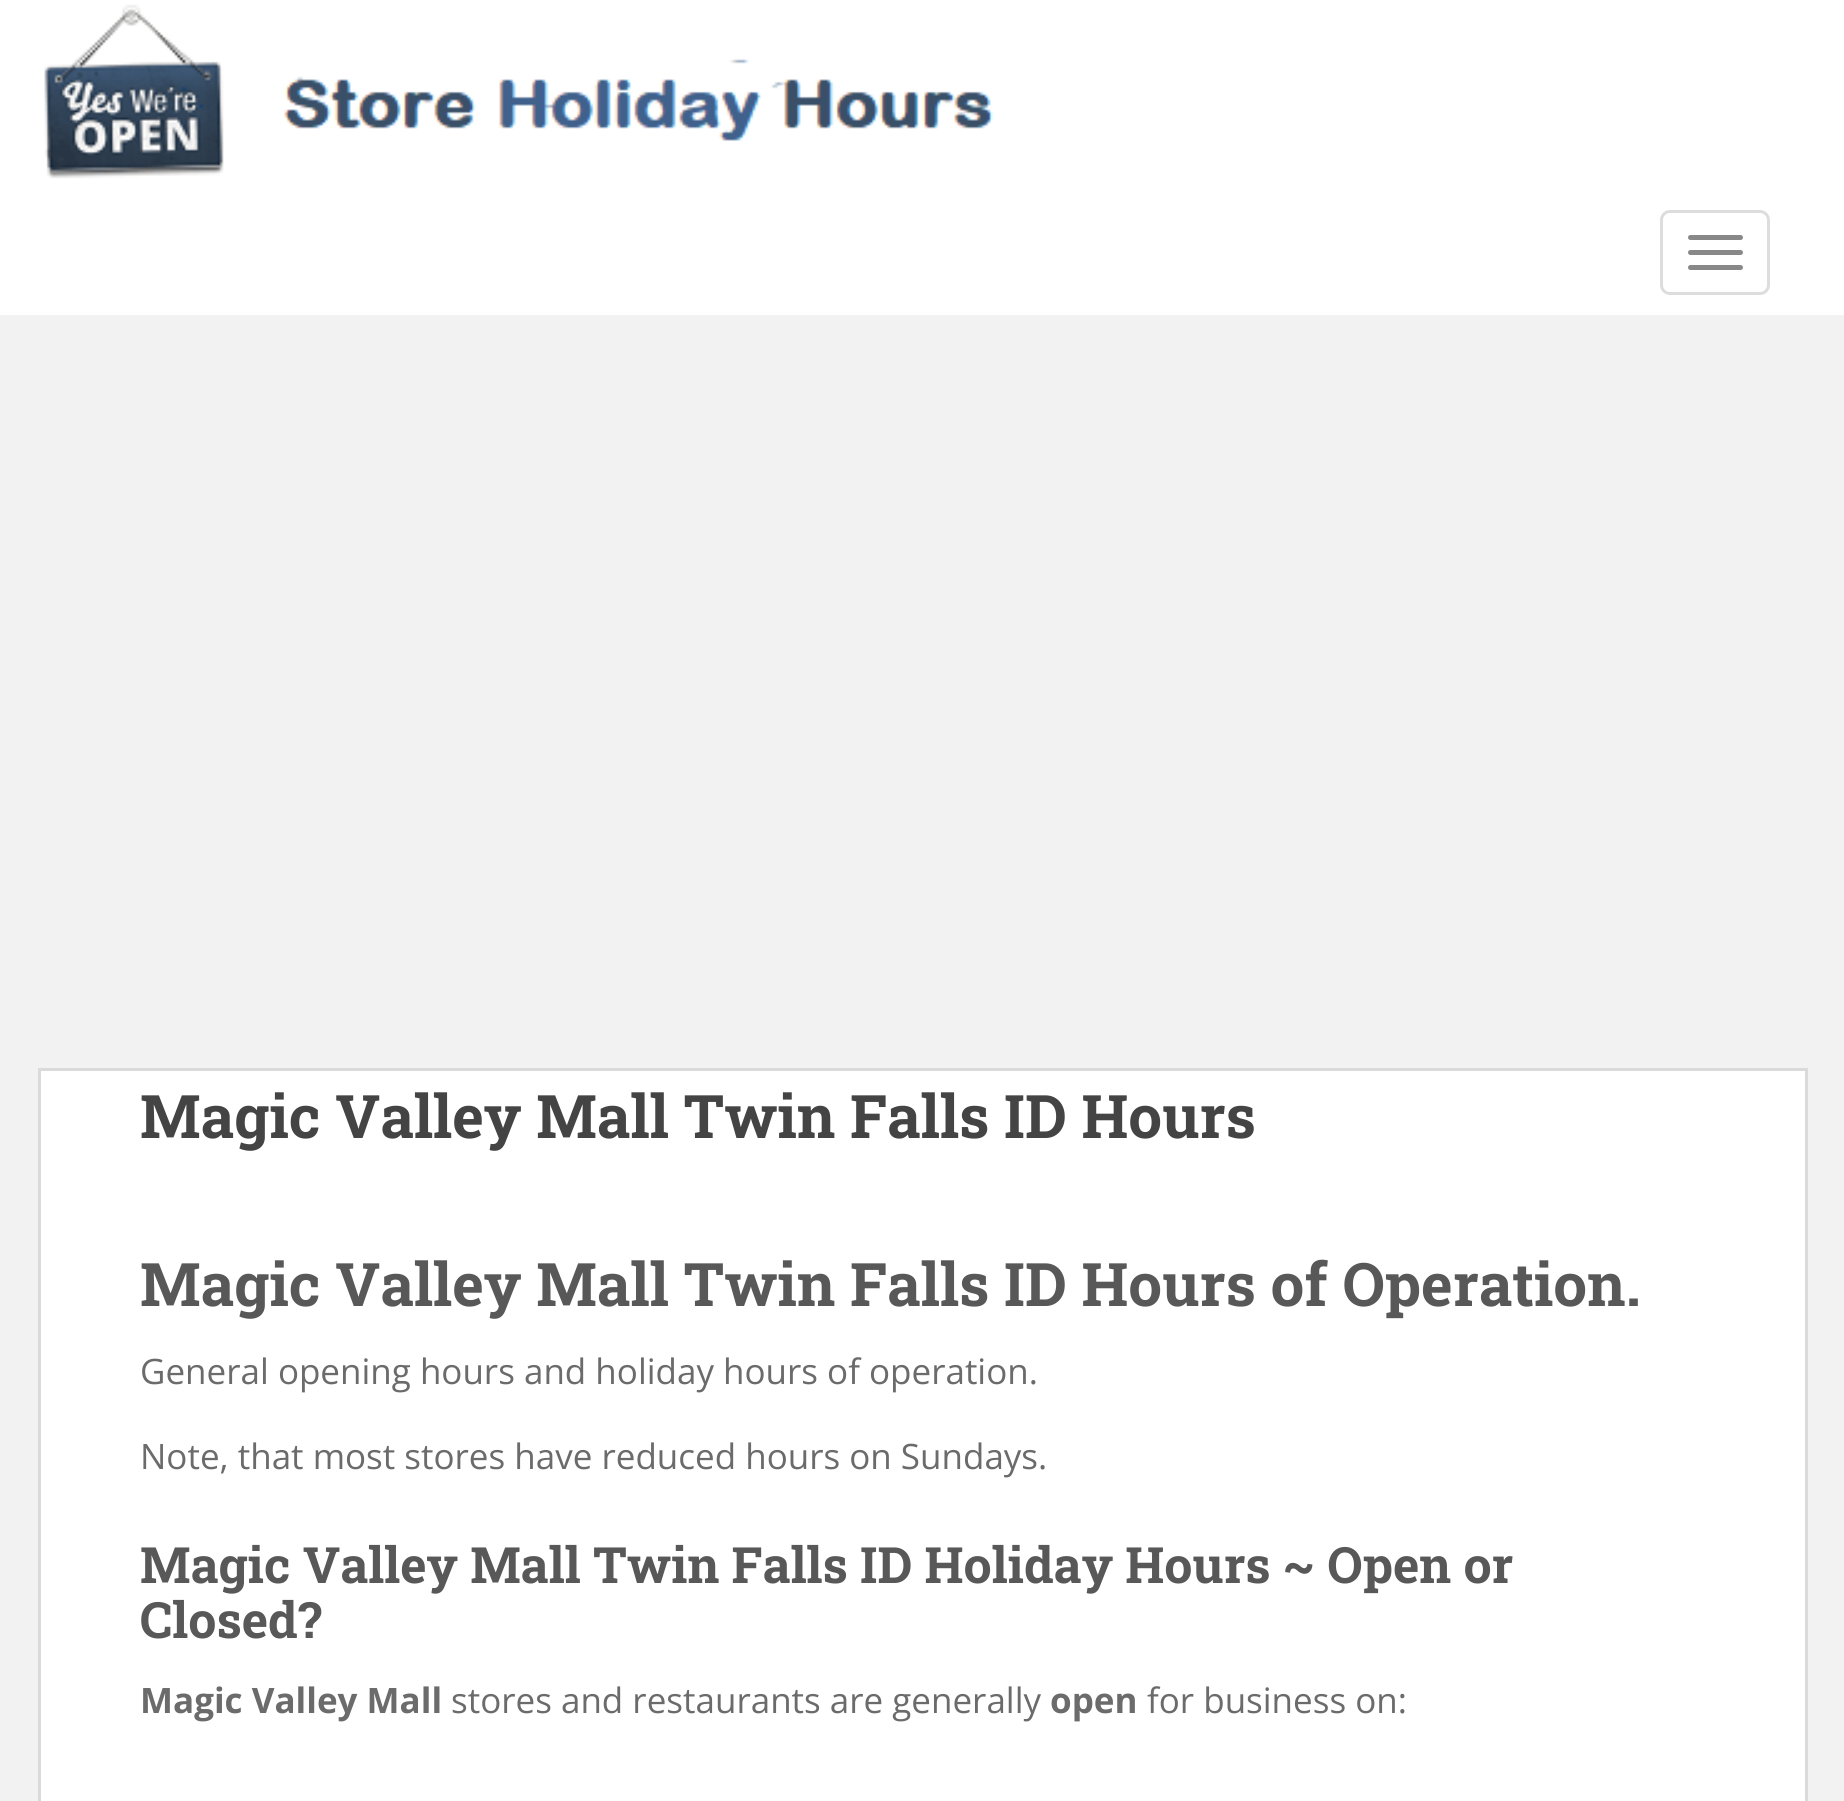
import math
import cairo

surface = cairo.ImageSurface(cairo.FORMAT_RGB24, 1844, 1801)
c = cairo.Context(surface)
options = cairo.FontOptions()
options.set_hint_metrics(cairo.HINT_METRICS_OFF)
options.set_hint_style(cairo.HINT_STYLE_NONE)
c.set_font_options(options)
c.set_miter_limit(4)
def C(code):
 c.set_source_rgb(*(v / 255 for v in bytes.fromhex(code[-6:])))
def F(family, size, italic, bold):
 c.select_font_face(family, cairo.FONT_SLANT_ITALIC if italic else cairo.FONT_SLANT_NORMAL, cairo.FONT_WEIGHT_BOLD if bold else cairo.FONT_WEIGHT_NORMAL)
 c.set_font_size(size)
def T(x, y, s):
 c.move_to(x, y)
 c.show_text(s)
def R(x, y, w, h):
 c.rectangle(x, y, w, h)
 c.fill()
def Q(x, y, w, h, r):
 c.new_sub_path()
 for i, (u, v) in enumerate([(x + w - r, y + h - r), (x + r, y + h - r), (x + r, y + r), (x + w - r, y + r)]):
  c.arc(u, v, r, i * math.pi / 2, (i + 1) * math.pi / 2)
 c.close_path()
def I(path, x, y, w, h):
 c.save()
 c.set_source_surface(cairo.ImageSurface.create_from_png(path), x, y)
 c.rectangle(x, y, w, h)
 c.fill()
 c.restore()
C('f2f2f2')
c.paint()
C('ffffff')
R(0,0,1844,315)
I('1.png',44,4,950,175)
Q(1661.5,211.5,107,82,8.5)
C('dddddd')
c.set_line_width(3)
c.stroke()
C('888888')
Q(1688,235,55,5,2.5)
c.fill()
Q(1688,250,55,5,2.5)
c.fill()
Q(1688,265,55,5,2.5)
c.fill()
C('ffffff')
c.rectangle(39.5,1069.5,1767,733)
c.fill_preserve()
C('dadada')
c.stroke()
F('Roboto Slab',60,0,1)
C('444444')
T(140,1138,'Magic Valley Mall Twin Falls ID Hours')
C('585858')
T(140,1306,'Magic Valley Mall Twin Falls ID Hours of Operation.')
F('Open Sans',35,0,0)
C('6b6b6b')
T(140,1384,'General opening hours and holiday hours of operation.')
T(140,1469,'Note, that most stores have reduced hours on Sundays.')
F('Roboto Slab',50,0,1)
C('585858')
T(140,1583,'Magic Valley Mall Twin Falls ID Holiday Hours ~ Open or')
T(140,1638,'Closed?')
F('Open Sans',35,0,1)
C('6b6b6b')
T(140,1713,'Magic Valley Mall')
F('Open Sans',35,0,0)
T(451,1713,'stores and restaurants are generally')
F('Open Sans',35,0,1)
T(1050,1713,'open')
F('Open Sans',35,0,0)
T(1147,1713,'for business on:')
surface.write_to_png('o.png')
